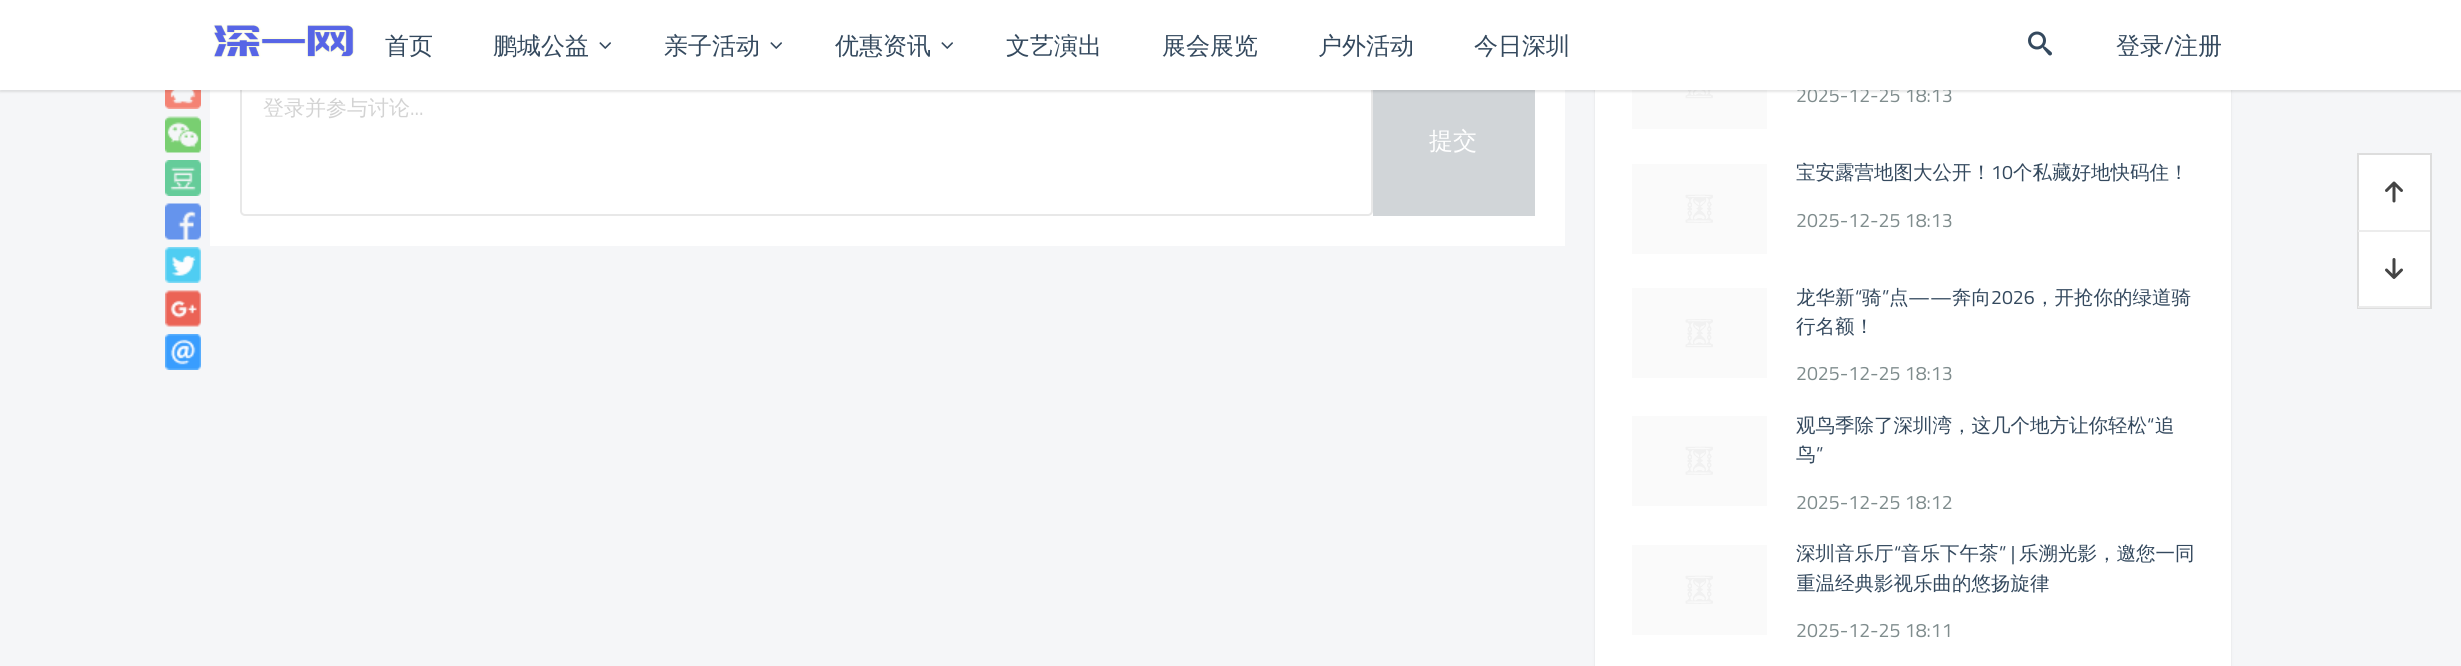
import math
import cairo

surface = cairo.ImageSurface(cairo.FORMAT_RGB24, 2461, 666)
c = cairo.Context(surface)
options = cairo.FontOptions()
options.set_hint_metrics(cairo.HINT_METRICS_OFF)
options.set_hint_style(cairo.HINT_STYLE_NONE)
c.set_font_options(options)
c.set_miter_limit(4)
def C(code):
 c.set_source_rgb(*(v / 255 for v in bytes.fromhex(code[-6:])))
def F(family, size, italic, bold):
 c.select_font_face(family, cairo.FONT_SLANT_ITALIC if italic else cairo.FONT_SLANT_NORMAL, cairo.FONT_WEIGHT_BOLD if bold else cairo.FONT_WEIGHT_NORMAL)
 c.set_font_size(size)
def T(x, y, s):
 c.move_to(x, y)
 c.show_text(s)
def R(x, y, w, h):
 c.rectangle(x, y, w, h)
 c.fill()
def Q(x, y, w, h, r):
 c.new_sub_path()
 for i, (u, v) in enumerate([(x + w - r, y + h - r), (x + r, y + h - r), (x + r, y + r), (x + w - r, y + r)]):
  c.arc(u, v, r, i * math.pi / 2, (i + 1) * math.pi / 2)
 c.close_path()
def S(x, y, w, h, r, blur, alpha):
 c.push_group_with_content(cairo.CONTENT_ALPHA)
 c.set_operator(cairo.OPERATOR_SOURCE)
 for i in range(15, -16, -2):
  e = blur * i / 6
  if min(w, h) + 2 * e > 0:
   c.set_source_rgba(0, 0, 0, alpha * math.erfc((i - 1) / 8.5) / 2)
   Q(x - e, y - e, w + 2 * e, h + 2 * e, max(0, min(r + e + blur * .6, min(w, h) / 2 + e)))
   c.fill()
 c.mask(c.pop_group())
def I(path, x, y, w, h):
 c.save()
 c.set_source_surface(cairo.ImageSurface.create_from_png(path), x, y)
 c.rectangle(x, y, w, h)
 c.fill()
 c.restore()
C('f5f6f8')
c.paint()
I('4.png',165,90,36,19)
C('ffffff')
R(210,90,1355,156)
Q(241,67,1131,148,4)
C('e8e8e8')
c.stroke()
C('d1d5d8')
R(1373,90,162,126)
C('000000')
S(1595,-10,636,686,5,1.5,.09)
C('ffffff')
R(1595,90,636,576)
I('11.png',1632,90,135,39)
C('000000')
S(0,2,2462,90,0,1,.1)
F('Titillium Web',19.5,0,0)
C('7f8c8d')
T(1796,102,'2025-12-25 18:13')
C('ffffff')
R(0,0,2461,90)
I('1.png',213,24,142,35)
F('WenQuanYi Zen Hei Medium',24,0,0)
C('34495e')
T(385,54,'首页')
T(493,54,'鹏城公益')
I('2.png',599,42,12,7)
T(664,54,'亲子活动')
I('2.png',770,42,12,7)
T(835,54,'优惠资讯')
I('2.png',941,42,12,7)
T(1006,54,'文艺演出')
T(1162,54,'展会展览')
T(1318,54,'户外活动')
T(1474,54,'今日深圳')
I('3.png',2028,31,24,25)
T(2116,54,'登录')
F('Titillium Web',24,0,0)
T(2164,54,'/')
F('WenQuanYi Zen Hei Medium',24,0,0)
T(2174,54,'注册')
I('5.png',165,116,36,37)
I('6.png',165,160,36,36)
I('7.png',165,203,36,37)
I('8.png',165,247,36,36)
I('9.png',165,290,36,37)
I('10.png',165,334,36,36)
F('WenQuanYi Zen Hei Medium',21,0,0)
C('d3d3d3')
T(263,115,'登录并参与讨论')
F('Titillium Web',21,0,0)
T(410,115,'...')
F('WenQuanYi Zen Hei Medium',24,0,0)
C('ffffff')
T(1429,149,'提交')
I('12.png',1632,164,135,90)
F('WenQuanYi Zen Hei Medium',19.5,0,0)
C('34495e')
T(1796,179,'宝安露营地图大公开！')
F('Titillium Web',19.5,0,0)
T(1991,179,'10')
F('WenQuanYi Zen Hei Medium',19.5,0,0)
T(2013,179,'个私藏好地快码住！')
F('Titillium Web',19.5,0,0)
C('7f8c8d')
T(1796,227,'2025-12-25 18:13')
I('13.png',1632,288,135,90)
F('WenQuanYi Zen Hei Medium',19.5,0,0)
C('34495e')
T(1796,304,'龙华新')
F('Titillium Web',19.5,0,0)
T(1855,304,'“')
F('WenQuanYi Zen Hei Medium',19.5,0,0)
T(1862,304,'骑')
F('Titillium Web',19.5,0,0)
T(1882,304,'”')
F('WenQuanYi Zen Hei Medium',19.5,0,0)
T(1889,304,'点')
F('Titillium Web',19.5,0,0)
T(1908,304,'——')
F('WenQuanYi Zen Hei Medium',19.5,0,0)
T(1952,304,'奔向')
F('Titillium Web',19.5,0,0)
T(1991,304,'2026')
F('WenQuanYi Zen Hei Medium',19.5,0,0)
T(2035,304,'，开抢你的绿道骑')
T(1796,333,'行名额！')
F('Titillium Web',19.5,0,0)
C('7f8c8d')
T(1796,380,'2025-12-25 18:13')
I('12.png',1632,416,135,90)
F('WenQuanYi Zen Hei Medium',19.5,0,0)
C('34495e')
T(1796,432,'观鸟季除了深圳湾，这几个地方让你轻松')
F('Titillium Web',19.5,0,0)
T(2147,432,'“')
F('WenQuanYi Zen Hei Medium',19.5,0,0)
T(2155,432,'追')
T(1796,461,'鸟')
F('Titillium Web',19.5,0,0)
T(1816,461,'”')
C('7f8c8d')
T(1796,509,'2025-12-25 18:12')
I('12.png',1632,545,135,90)
F('WenQuanYi Zen Hei Medium',19.5,0,0)
C('34495e')
T(1796,560,'深圳音乐厅')
F('Titillium Web',19.5,0,0)
T(1894,560,'“')
F('WenQuanYi Zen Hei Medium',19.5,0,0)
T(1901,560,'音乐下午茶')
F('Titillium Web',19.5,0,0)
T(1999,560,'” |')
F('WenQuanYi Zen Hei Medium',19.5,0,0)
T(2019,560,'乐溯光影，邀您一同')
c.save()
c.rectangle(1797,540,404,59)
c.clip()
T(1796,590,'重温经典影视乐曲的悠扬旋律')
c.restore()
F('Titillium Web',19.5,0,0)
C('7f8c8d')
T(1796,637,'2025-12-25 18:11')
C('ffffff')
R(2359,155,71,151)
c.rectangle(2358,154,73,154)
C('dddddd')
c.stroke()
C('ececec')
R(2358,230,72,2)
I('14.png',2385,181,18,22)
R(2358,306,72,2)
I('15.png',2385,258,18,21)
surface.write_to_png('o.png')
